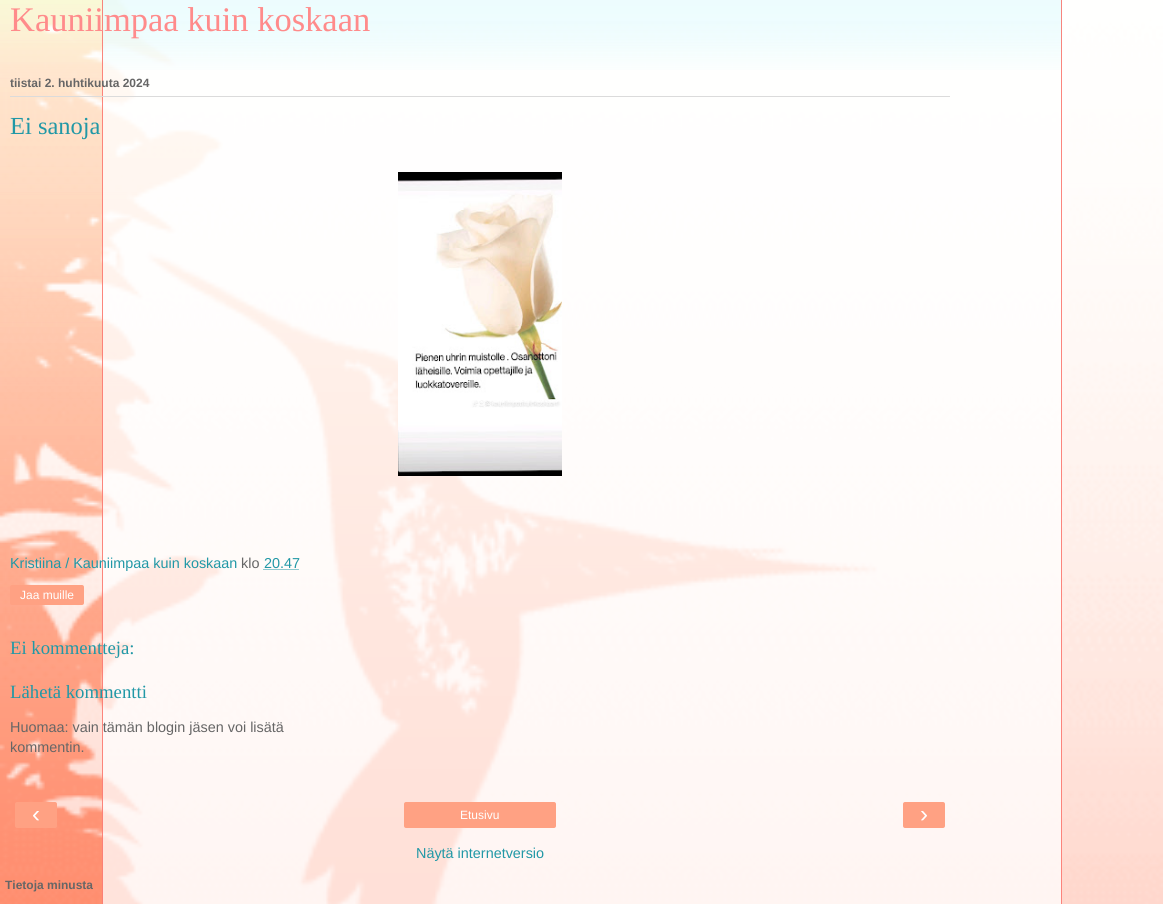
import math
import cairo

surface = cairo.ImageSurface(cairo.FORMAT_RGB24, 1163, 904)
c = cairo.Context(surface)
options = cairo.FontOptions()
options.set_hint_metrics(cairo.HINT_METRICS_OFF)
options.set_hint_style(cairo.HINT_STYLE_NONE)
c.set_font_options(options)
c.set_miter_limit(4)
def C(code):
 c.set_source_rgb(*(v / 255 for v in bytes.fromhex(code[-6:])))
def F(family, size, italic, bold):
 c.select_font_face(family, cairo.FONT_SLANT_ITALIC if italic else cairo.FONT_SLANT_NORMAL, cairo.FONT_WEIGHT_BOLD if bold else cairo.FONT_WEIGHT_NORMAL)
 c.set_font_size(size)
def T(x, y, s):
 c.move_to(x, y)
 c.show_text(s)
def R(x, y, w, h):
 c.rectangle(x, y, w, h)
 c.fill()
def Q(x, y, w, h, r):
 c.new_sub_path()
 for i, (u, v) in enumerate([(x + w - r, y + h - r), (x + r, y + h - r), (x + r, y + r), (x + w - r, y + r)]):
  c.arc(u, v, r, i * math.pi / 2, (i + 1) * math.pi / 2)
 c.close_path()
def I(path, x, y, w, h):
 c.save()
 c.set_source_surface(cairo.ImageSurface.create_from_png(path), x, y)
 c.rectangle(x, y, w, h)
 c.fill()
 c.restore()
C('ffffff')
c.paint()
I('1.png',0,0,1163,904)
I('2.png',0,0,1163,904)
c.set_source_rgba(1,1,1,0.75)
R(102,0,960,904)
I('3.png',102,0,960,70)
c.set_source_rgba(0.984,0.369,0.325,0.75)
R(1061,0,1,904)
R(102,0,1,904)
F('Liberation Serif',34.5,0,0)
C('ff8b8b')
T(10,31,'Kauniimpaa kuin koskaan')
C('dbdbdb')
R(10,96,940,1)
F('Liberation Sans',12,0,1)
C('666666')
T(10,87,'tiistai 2. huhtikuuta 2024')
F('Liberation Serif',24.5,0,0)
C('2198a6')
T(10,134,'Ei sanoja')
I('4.png',398,172,164,304)
F('Liberation Sans',14.4,0,0)
T(10,568,'Kristiina / Kauniimpaa kuin koskaan')
C('666666')
T(241,568,'klo')
C('2198a6')
T(264,568,'20.47')
c.new_path()
c.move_to(263.5,569.5)
c.line_to(299.5,569.5)
c.set_line_width(1)
c.set_dash([1,1])
c.stroke()
C('ffa183')
Q(10,585,74,20,2)
c.fill()
F('Liberation Sans',12,0,0)
C('ffffff')
T(20,599,'Jaa muille')
F('Liberation Serif',18.75,0,0)
C('2198a6')
T(10,654,'Ei kommentteja:')
T(10,698,'Lähetä kommentti')
F('Liberation Sans',14.4,0,0)
C('666666')
T(10,732,'Huomaa: vain tämän blogin jäsen voi lisätä')
T(10,752,'kommentin.')
C('ffa183')
Q(15,802,42,26,2)
c.fill()
F('Liberation Sans',24,0,0)
C('ffffff')
T(32,822,'‹')
C('ffa183')
Q(404,802,152,26,2)
c.fill()
F('Liberation Sans',12,0,0)
C('ffffff')
T(460,819,'Etusivu')
C('ffa183')
Q(903,802,42,26,2)
c.fill()
F('Liberation Sans',24,0,0)
C('ffffff')
T(920,822,'›')
F('Liberation Sans',14.4,0,0)
C('2198a6')
T(416,858,'Näytä internetversio')
F('Liberation Sans',12,0,1)
C('666666')
T(5,889,'Tietoja minusta')
surface.write_to_png('o.png')
